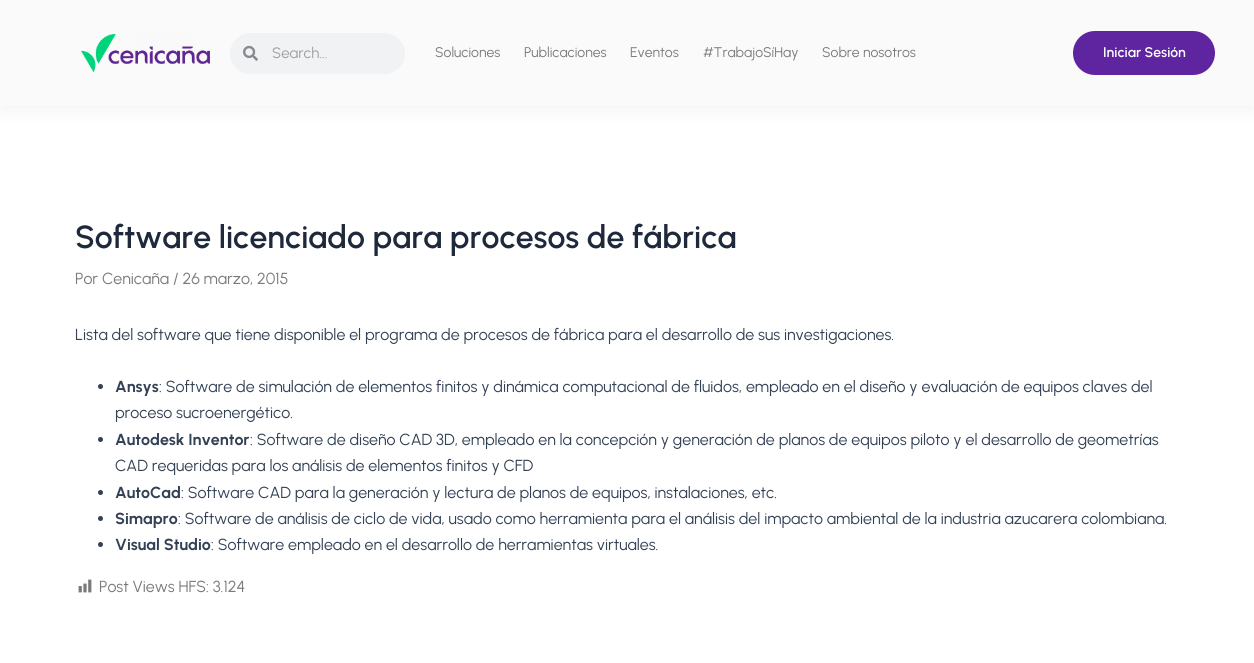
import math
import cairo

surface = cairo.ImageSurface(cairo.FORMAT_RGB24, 1254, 663)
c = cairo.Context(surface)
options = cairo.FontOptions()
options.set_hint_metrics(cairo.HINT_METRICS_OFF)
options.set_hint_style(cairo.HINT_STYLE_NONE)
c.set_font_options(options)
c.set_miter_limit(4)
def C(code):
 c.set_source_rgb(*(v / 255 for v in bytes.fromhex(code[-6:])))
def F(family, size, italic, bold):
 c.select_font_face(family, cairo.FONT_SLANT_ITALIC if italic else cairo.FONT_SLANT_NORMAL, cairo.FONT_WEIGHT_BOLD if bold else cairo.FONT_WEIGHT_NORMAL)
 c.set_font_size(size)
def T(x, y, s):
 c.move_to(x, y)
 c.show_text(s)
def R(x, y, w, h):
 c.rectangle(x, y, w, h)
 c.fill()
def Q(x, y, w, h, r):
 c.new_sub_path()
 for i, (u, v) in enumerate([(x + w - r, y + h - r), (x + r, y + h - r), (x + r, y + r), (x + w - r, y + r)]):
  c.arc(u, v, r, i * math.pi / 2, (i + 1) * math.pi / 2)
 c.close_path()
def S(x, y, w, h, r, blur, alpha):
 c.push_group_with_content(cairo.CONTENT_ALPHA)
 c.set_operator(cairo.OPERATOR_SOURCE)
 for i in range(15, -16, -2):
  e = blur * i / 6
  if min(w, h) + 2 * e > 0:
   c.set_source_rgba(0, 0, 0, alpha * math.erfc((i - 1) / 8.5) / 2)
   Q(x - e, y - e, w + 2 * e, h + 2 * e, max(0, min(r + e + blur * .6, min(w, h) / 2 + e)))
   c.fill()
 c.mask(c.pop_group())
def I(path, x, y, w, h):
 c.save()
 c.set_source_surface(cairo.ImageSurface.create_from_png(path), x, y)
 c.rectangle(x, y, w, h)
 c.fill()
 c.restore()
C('ffffff')
c.paint()
C('000000')
S(0,0,1254,106,0,12,.07)
C('fafafa')
R(0,0,1254,106)
I('1.png',81,34,129,38)
C('f1f2f3')
Q(230,33,175,41,20.5)
c.fill()
I('2.png',243,45,15,16)
F('Urbanist',15,0,0)
C('9e9e9e')
T(272,58,'Search...')
F('Urbanist',14,0,0)
C('7a7a7a')
T(435,57,'Soluciones')
T(524,57,'Publicaciones')
T(630,57,'Eventos')
T(703,57,'#TrabajoSíHay')
T(822,57,'Sobre nosotros')
C('5f249f')
Q(1073,31,142,44,22)
c.fill()
F('Urbanist SemiBold',14,0,0)
C('ffffff')
T(1103,57,'Iniciar Sesión')
F('Urbanist SemiBold',32,0,0)
C('1e293b')
T(75,248,'Software licenciado para procesos de fábrica')
F('Urbanist',16,0,0)
C('7a7a7a')
T(75,284,'Por Cenicaña / 26 marzo, 2015')
C('334155')
T(75,340,'Lista del software que tiene disponible el programa de procesos de fábrica para el desarrollo de sus investigaciones.')
c.new_path()
c.arc(100.5,386.5,2.5,0,2 * math.pi)
c.fill()
F('Urbanist',16,0,1)
T(115,392,'Ansys')
F('Urbanist',16,0,0)
T(159,392,': Software de simulación de elementos finitos y dinámica computacional de fluidos, empleado en el diseño y evaluación de equipos claves del')
T(115,418,'proceso sucroenergético.')
c.new_path()
c.arc(100.5,439.5,2.5,0,2 * math.pi)
c.fill()
F('Urbanist',16,0,1)
T(115,445,'Autodesk Inventor')
F('Urbanist',16,0,0)
T(250,445,': Software de diseño CAD 3D, empleado en la concepción y generación de planos de equipos piloto y el desarrollo de geometrías')
T(115,471,'CAD requeridas para los análisis de elementos finitos y CFD')
c.new_path()
c.arc(100.5,492.5,2.5,0,2 * math.pi)
c.fill()
F('Urbanist',16,0,1)
T(115,498,'AutoCad')
F('Urbanist',16,0,0)
T(181,498,': Software CAD para la generación y lectura de planos de equipos, instalaciones, etc.')
c.new_path()
c.arc(100.5,518.5,2.5,0,2 * math.pi)
c.fill()
F('Urbanist',16,0,1)
T(115,524,'Simapro')
F('Urbanist',16,0,0)
T(178,524,': Software de análisis de ciclo de vida, usado como herramienta para el análisis del impacto ambiental de la industria azucarera colombiana.')
c.new_path()
c.arc(100.5,544.5,2.5,0,2 * math.pi)
c.fill()
F('Urbanist',16,0,1)
T(115,550,'Visual Studio')
F('Urbanist',16,0,0)
T(211,550,': Software empleado en el desarrollo de herramientas virtuales.')
I('3.png',78,579,14,14)
C('7a7a7a')
T(99,592,'Post Views HFS: 3.124')
surface.write_to_png('o.png')
